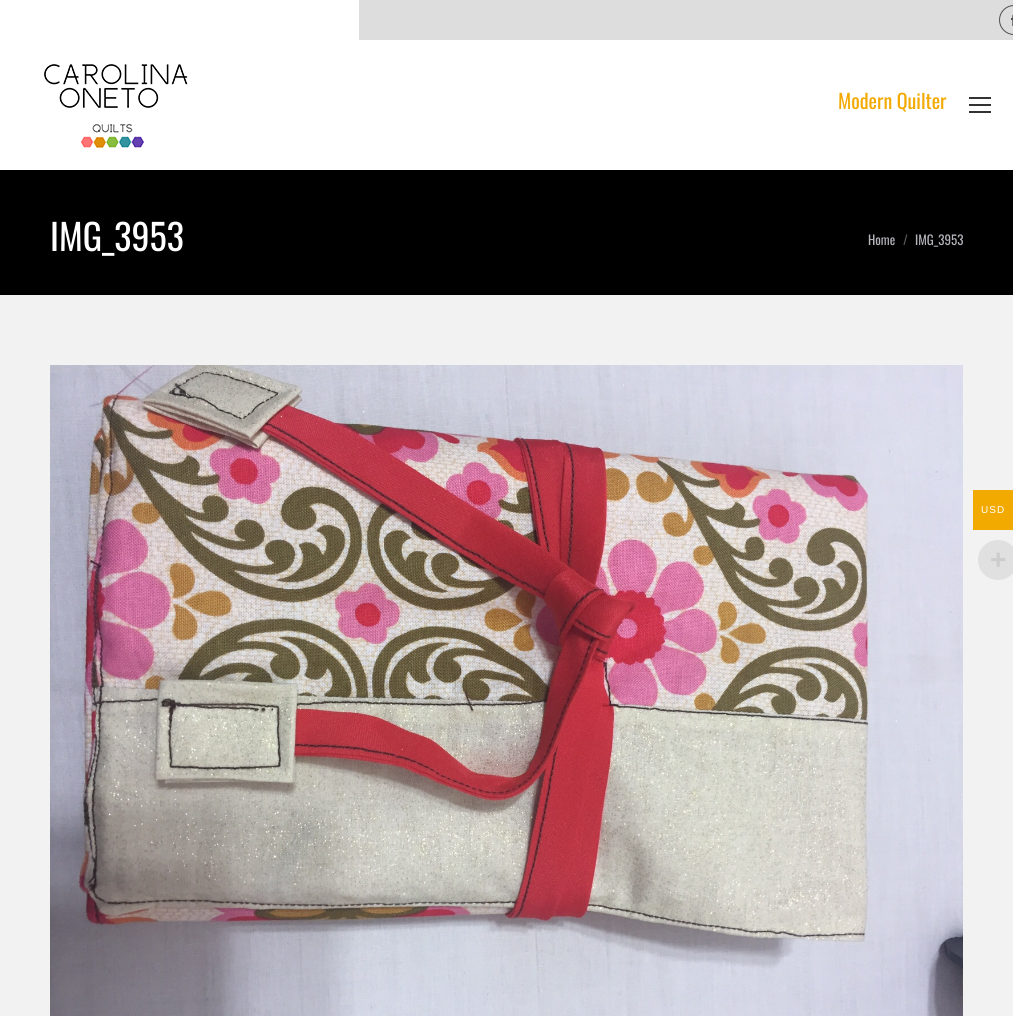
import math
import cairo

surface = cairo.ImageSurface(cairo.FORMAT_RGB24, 1013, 1016)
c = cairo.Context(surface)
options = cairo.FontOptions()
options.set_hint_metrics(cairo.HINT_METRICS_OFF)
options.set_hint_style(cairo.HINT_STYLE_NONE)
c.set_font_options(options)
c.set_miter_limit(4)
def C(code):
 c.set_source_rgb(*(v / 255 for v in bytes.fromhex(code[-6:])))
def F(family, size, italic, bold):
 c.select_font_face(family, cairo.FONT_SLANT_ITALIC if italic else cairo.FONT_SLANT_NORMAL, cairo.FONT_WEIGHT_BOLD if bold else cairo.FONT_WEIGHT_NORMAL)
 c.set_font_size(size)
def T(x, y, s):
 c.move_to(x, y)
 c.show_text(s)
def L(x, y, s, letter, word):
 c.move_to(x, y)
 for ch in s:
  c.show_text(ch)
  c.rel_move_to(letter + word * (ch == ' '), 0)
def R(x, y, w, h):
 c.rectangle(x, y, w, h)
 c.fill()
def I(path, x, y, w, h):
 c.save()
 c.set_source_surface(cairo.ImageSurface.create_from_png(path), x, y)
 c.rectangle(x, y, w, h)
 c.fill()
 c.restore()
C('f2f2f2')
c.paint()
C('ffffff')
R(0,0,1013,170)
C('dddddd')
R(359,0,654,40)
c.arc(1014,20,14.5,0,2 * math.pi)
C('4f4f4f')
c.set_line_width(1)
c.stroke()
I('1.png',1011,14,2,12)
I('2.png',44,64,144,84)
F('Oswald',20,0,0)
C('f2a900')
T(838,109,'Modern Quilter')
C('333333')
R(969,97,22,2)
R(969,104,22,2)
R(969,111,22,2)
C('000000')
R(0,170,1013,125)
F('Oswald',36,0,0)
C('ffffff')
T(50,251,'IMG_3953')
F('Oswald',13,0,0)
C('b4b5bb')
T(868,245,'Home')
C('5a5b5e')
T(903,245,'/')
C('b4b5bb')
T(915,245,'IMG_3953')
I('3.png',50,365,913,651)
C('f2a900')
R(973,490,40,40)
F('Liberation Sans',10,0,0)
C('ffffff')
L(981,513,'USD',1,0)
C('e0e0e0')
c.new_path()
c.arc(998,560,20,0,2 * math.pi)
c.fill()
F('Liberation Sans',28,0,1)
C('cccccc')
T(990,569,'+')
surface.write_to_png('o.png')
